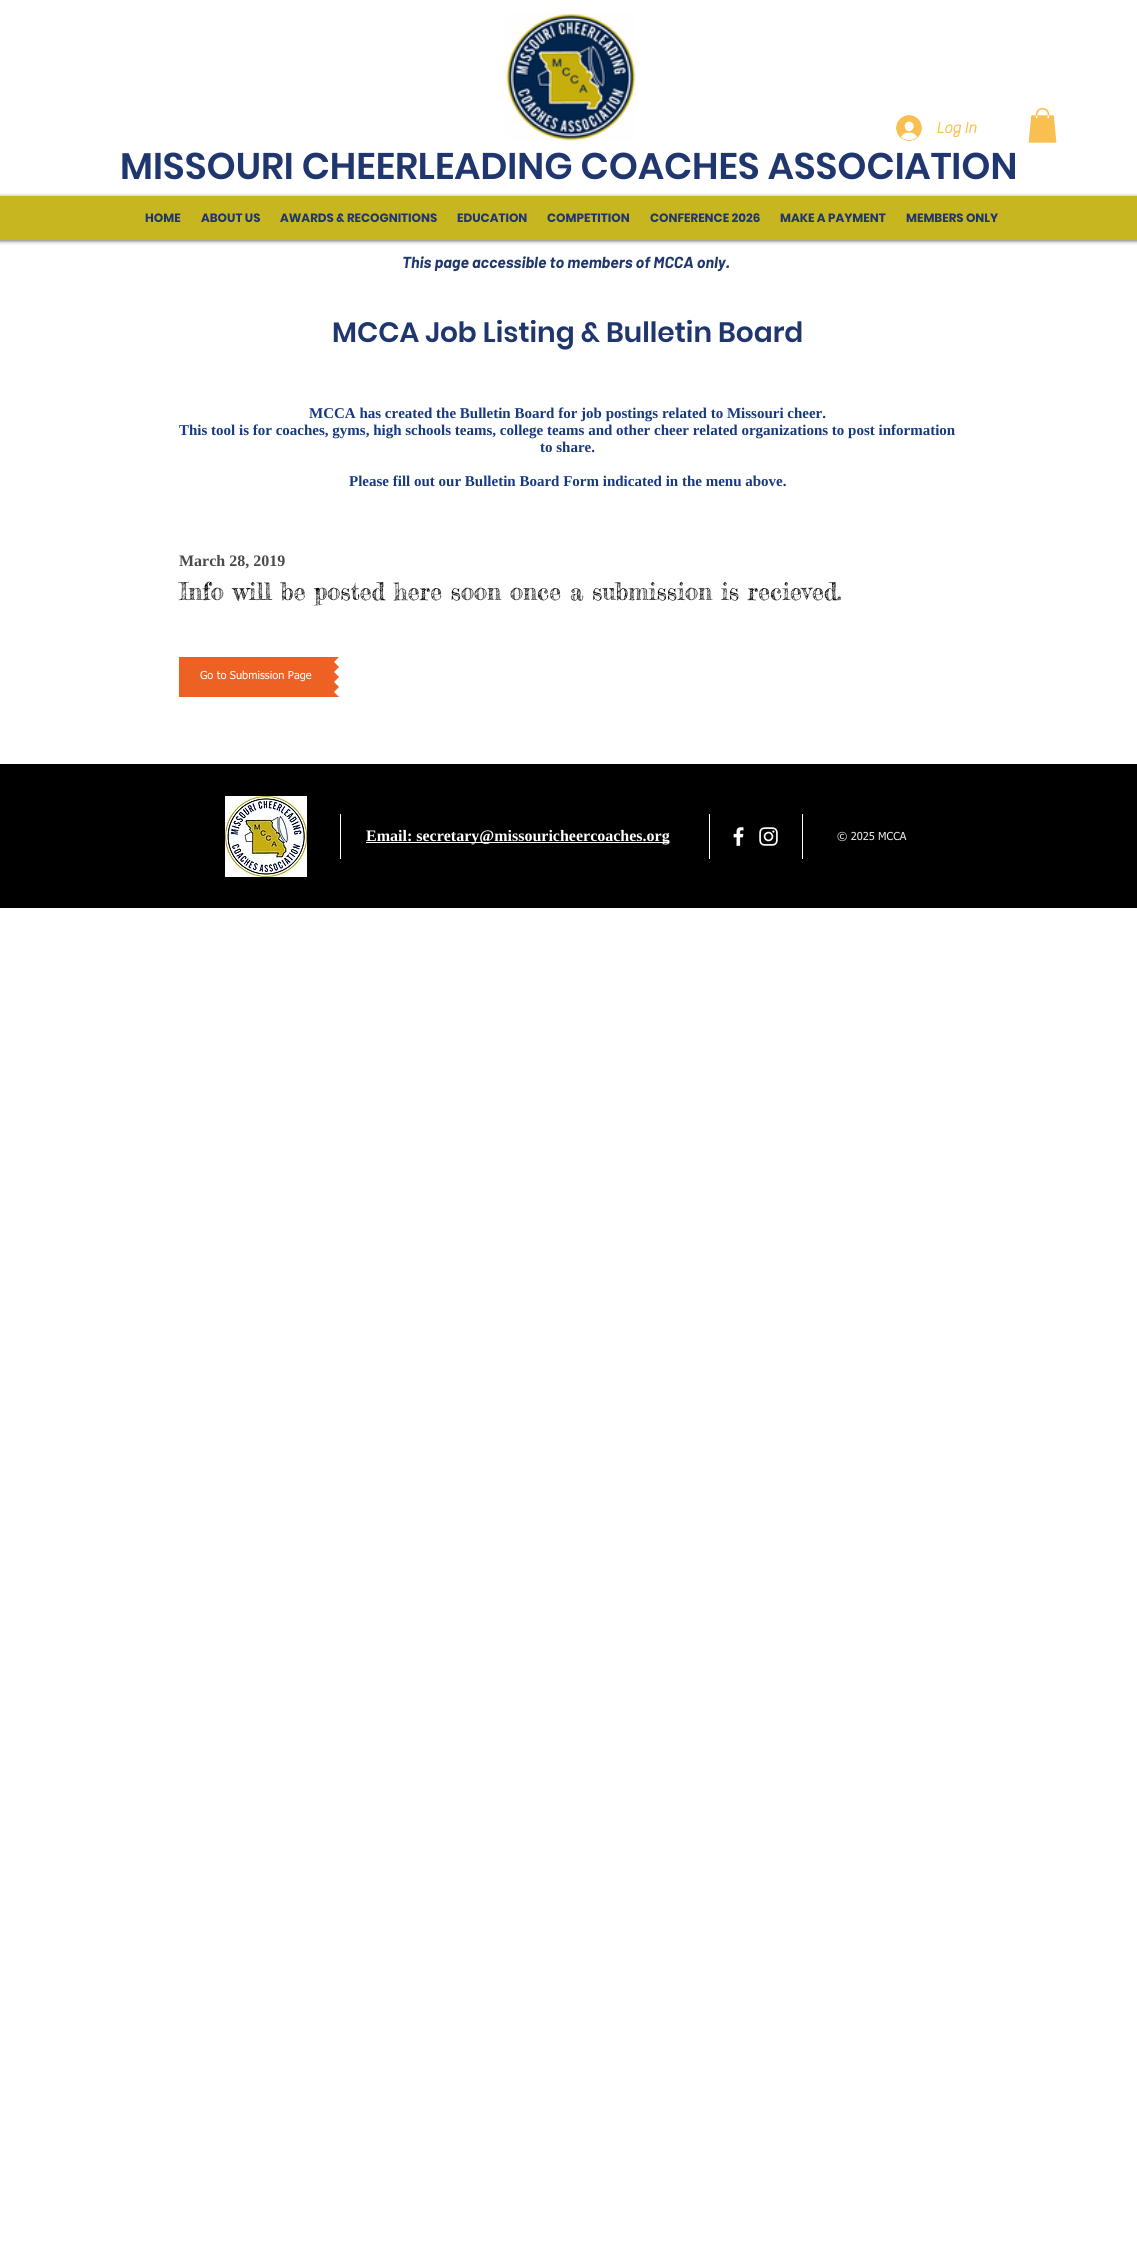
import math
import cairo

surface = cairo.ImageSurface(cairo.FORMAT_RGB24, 1137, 2249)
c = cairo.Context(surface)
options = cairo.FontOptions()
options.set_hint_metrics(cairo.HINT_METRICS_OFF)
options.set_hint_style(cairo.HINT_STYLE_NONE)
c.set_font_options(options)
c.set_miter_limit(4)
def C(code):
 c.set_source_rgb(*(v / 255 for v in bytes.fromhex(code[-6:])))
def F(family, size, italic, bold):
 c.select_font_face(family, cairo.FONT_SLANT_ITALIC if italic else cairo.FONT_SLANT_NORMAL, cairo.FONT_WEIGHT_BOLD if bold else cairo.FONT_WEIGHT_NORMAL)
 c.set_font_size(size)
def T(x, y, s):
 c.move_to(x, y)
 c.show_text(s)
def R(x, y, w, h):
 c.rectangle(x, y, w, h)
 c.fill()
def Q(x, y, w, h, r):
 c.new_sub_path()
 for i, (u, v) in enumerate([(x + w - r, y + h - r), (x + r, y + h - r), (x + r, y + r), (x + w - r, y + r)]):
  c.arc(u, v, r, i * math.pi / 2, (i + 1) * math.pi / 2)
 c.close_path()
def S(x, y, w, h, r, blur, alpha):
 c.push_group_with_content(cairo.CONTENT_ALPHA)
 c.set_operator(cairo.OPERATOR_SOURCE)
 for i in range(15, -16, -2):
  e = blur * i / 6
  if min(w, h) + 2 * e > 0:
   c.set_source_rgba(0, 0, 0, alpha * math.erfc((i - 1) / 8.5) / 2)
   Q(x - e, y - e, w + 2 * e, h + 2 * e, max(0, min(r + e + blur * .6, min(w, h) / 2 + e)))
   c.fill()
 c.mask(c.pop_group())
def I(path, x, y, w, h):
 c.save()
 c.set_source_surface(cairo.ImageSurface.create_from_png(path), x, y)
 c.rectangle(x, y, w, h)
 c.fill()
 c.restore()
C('ffffff')
c.paint()
I('1.png',506,13,130,128)
I('2.png',896,115,26,26)
F('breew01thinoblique',16,0,1)
C('f9bf51')
T(936,133,'Log In')
I('3.png',1028,108,29,35)
F('Poppins SemiBold',37,0,0)
C('20366e')
T(120,179,'MISSOURI CHEERLEADING COACHES ASSOCIATION')
C('000000')
S(-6,197,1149,44,0,2,.6)
C('c7b620')
R(0,196,1137,44)
F('Poppins',12,0,1)
C('20366e')
T(145,222,'HOME')
T(201,222,'ABOUT US')
T(280,222,'AWARDS & RECOGNITIONS')
T(457,222,'EDUCATION')
T(547,222,'COMPETITION')
T(650,222,'CONFERENCE 2026')
T(780,222,'MAKE A PAYMENT')
T(906,222,'MEMBERS ONLY')
F('Barlow',16,1,1)
T(402,268,'This page accessible to members of MCCA only.')
F('Poppins SemiBold',28,0,0)
T(332,342,'MCCA Job Listing & Bulletin Board')
F('Liberation Serif',15,0,1)
C('173981')
T(309,418,'MCCA has created the Bulletin Board for job postings related to Missouri cheer.')
T(179,435,'This tool is for coaches, gyms, high schools teams, college teams and other cheer related organizations to post information')
T(540,452,'to share.')
T(349,486,'Please fill out our Bulletin Board Form indicated in the menu above.')
F('Liberation Serif',16,0,1)
C('4a4a4a')
T(179,566,'March 28, 2019')
F('Fredericka the Great',24,0,0)
C('000000')
T(179,600,'Info will be posted here soon once a submission is recieved.')
C('ed6124')
R(179,657,155,40)
F('tahoma',11,0,0)
C('ffffff')
T(200,679,'Go to Submission Page')
c.save()
c.rectangle(334,657,5,40)
c.clip()
C('ed6124')
c.new_path()
c.move_to(334,662)
c.line_to(334,652)
c.line_to(339,657)
c.close_path()
c.fill()
c.restore()
C('ed6124')
c.new_path()
c.move_to(334,672)
c.line_to(334,662)
c.line_to(339,667)
c.close_path()
c.move_to(334,682)
c.line_to(334,672)
c.line_to(339,677)
c.close_path()
c.move_to(334,692)
c.line_to(334,682)
c.line_to(339,687)
c.close_path()
c.fill()
c.save()
c.rectangle(334,657,5,40)
c.clip()
c.new_path()
c.move_to(334,702)
c.line_to(334,692)
c.line_to(339,697)
c.close_path()
c.fill()
c.restore()
C('000000')
R(0,764,1137,144)
I('4.png',225,796,82,81)
C('ffffff')
R(340,814,1,45)
R(366,842,303,1)
F('Liberation Serif',16,0,1)
T(366,841,'Email: secretary@missouricheercoaches.org')
R(709,814,1,45)
I('5.png',733,827,11,19)
I('6.png',759,827,19,19)
R(802,814,1,45)
F('tahoma',11,0,0)
C('eaeaea')
T(837,840,'© 2025 MCCA')
surface.write_to_png('o.png')
